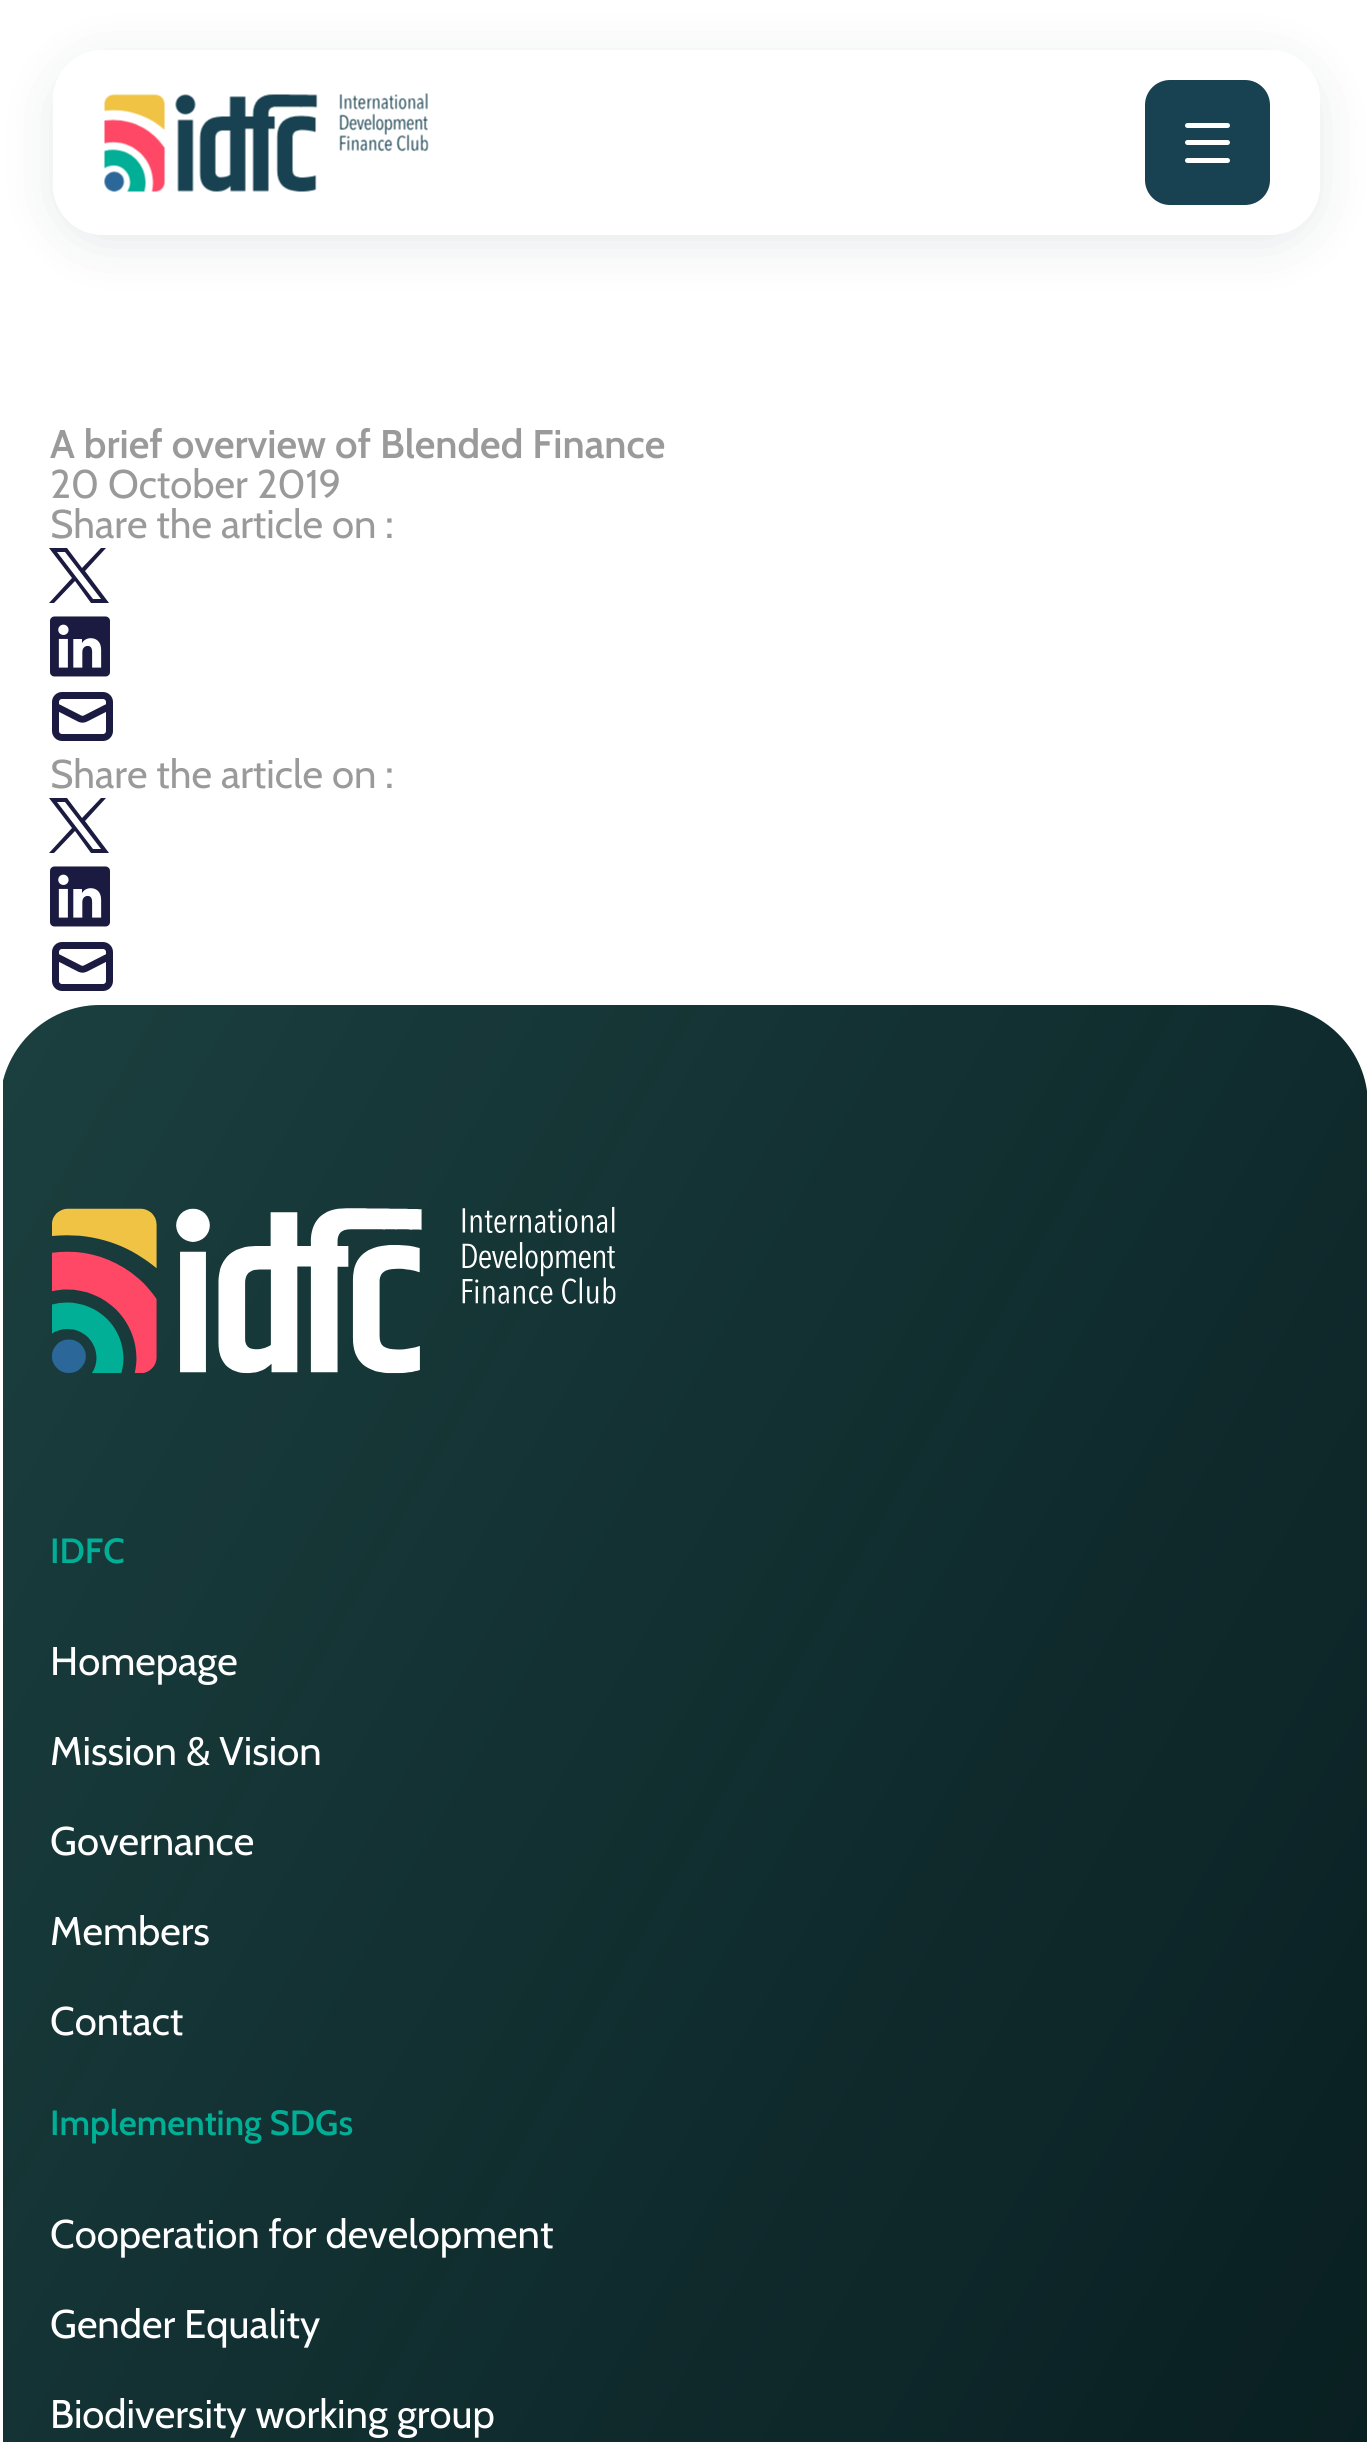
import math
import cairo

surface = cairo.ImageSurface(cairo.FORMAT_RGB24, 1367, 2442)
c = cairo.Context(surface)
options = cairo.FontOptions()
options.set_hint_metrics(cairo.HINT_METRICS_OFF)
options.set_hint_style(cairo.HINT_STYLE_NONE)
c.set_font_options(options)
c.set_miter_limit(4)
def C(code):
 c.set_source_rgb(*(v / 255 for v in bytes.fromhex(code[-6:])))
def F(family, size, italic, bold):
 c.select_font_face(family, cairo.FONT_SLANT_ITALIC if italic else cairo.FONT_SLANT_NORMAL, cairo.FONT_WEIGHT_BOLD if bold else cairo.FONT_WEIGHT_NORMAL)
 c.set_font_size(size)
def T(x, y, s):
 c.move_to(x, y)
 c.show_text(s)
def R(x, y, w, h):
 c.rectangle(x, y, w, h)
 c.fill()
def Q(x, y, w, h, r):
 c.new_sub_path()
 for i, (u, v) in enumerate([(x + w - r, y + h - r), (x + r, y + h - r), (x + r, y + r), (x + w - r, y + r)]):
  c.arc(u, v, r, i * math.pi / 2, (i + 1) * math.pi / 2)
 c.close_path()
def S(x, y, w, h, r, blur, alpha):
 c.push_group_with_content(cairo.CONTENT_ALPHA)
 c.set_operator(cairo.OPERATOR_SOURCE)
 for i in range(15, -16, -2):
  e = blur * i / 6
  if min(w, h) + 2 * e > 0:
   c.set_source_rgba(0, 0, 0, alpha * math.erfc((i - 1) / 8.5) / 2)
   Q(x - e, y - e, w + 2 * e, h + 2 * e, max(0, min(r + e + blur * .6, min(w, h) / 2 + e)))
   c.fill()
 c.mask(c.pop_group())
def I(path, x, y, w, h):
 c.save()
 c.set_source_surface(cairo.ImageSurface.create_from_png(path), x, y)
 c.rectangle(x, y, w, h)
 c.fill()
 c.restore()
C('ffffff')
c.paint()
c.save()
c.set_fill_rule(cairo.FILL_RULE_EVEN_ODD)
c.new_path()
c.move_to(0,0)
c.line_to(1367,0)
c.line_to(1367,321)
c.line_to(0,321)
c.close_path()
c.move_to(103,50)
c.line_to(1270,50)
c.curve_to(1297.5,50,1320,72.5,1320,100)
c.line_to(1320,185)
c.curve_to(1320,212.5,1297.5,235,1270,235)
c.line_to(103,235)
c.curve_to(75.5,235,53,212.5,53,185)
c.line_to(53,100)
c.curve_to(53,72.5,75.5,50,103,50)
c.close_path()
c.clip()
C('081d20')
S(53,60,1267,185,50,25,.1)
c.restore()
C('ffffff')
Q(53,50,1267,185,50)
c.fill()
I('1.png',104,93,325,99)
C('184251')
Q(1145,80,125,125,25)
c.fill()
C('ffffff')
Q(1185,123,45,5,2.5)
c.fill()
Q(1185,140,45,5,2.5)
c.fill()
Q(1185,158,45,5,2.5)
c.fill()
C('081d20')
c.new_path()
c.move_to(100,1005)
c.line_to(1268,1005)
c.curve_to(1323,1005,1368,1050,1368,1105)
c.line_to(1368,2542)
c.line_to(0,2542)
c.line_to(0,1105)
c.curve_to(0,1050,45,1005,100,1005)
c.close_path()
c.fill()
C('ffffff')
R(0,1080,3,1362)
F('Cabin SemiBold',40,0,0)
C('9a9a9a')
T(50,458,'A brief overview of Blended Finance')
F('Cabin',40,0,0)
T(50,498,'20 October 2019')
T(50,538,'Share the article on :')
C('1b1a40')
c.new_path()
c.move_to(49,548)
c.line_to(72,578)
c.line_to(49,603)
c.line_to(54,603)
c.line_to(75,581)
c.line_to(91,603)
c.line_to(109,603)
c.line_to(85,571)
c.line_to(106,548)
c.line_to(101,548)
c.line_to(82,568)
c.line_to(67,548)
c.close_path()
c.move_to(57,552)
c.line_to(65,552)
c.line_to(101,599)
c.line_to(93,599)
c.close_path()
c.fill()
I('2.png',50,616,60,61)
Q(55.5,695.5,54,42,6.5)
c.set_line_width(7)
c.stroke()
c.new_path()
c.move_to(55,706)
c.line_to(79.5,718.5)
c.curve_to(81.5,719.5,83.5,719.5,85.5,718.5)
c.line_to(110,706)
c.set_line_width(6.9)
c.stroke()
C('9a9a9a')
T(50,788,'Share the article on :')
C('1b1a40')
c.new_path()
c.move_to(49,798)
c.line_to(72,828)
c.line_to(49,853)
c.line_to(54,853)
c.line_to(75,831)
c.line_to(91,853)
c.line_to(109,853)
c.line_to(85,821)
c.line_to(106,798)
c.line_to(101,798)
c.line_to(82,818)
c.line_to(67,798)
c.close_path()
c.move_to(57,802)
c.line_to(65,802)
c.line_to(101,849)
c.line_to(93,849)
c.close_path()
c.fill()
I('2.png',50,866,60,61)
Q(55.5,945.5,54,42,6.5)
c.set_line_width(7)
c.stroke()
c.new_path()
c.move_to(55,956)
c.line_to(79.5,968.5)
c.curve_to(81.5,969.5,83.5,969.5,85.5,968.5)
c.line_to(110,956)
c.set_line_width(6.9)
c.stroke()
c.save()
c.new_path()
c.move_to(100,1005)
c.line_to(1268,1005)
c.curve_to(1323,1005,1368,1050,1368,1105)
c.line_to(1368,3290)
c.line_to(0,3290)
c.line_to(0,1105)
c.curve_to(0,1050,45,1005,100,1005)
c.close_path()
c.clip()
gradient = cairo.LinearGradient(-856,1258,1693,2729)
gradient.add_color_stop_rgba(0,0.514,0.98,0.918,.2)
gradient.add_color_stop_rgba(.9,0.514,0.98,0.918,0)
c.set_source(gradient)
c.new_path()
c.move_to(3,1005)
c.line_to(1268,1005)
c.curve_to(1323,1005,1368,1050,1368,1105)
c.line_to(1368,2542)
c.line_to(3,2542)
c.close_path()
c.fill()
c.restore()
I('3.png',52,1206,564,168)
F('Cabin SemiBold',35,0,0)
C('00af96')
T(50,1563,'IDFC')
F('Cabin',40,0,0)
C('ffffff')
T(50,1675,'Homepage')
T(50,1765,'Mission & Vision')
T(50,1855,'Governance')
T(50,1945,'Members')
T(50,2035,'Contact')
F('Cabin SemiBold',35,0,0)
C('00af96')
T(50,2135,'Implementing SDGs')
F('Cabin',40,0,0)
C('ffffff')
T(50,2248,'Cooperation for development')
T(50,2338,'Gender Equality')
T(50,2428,'Biodiversity working group')
surface.write_to_png('o.png')
